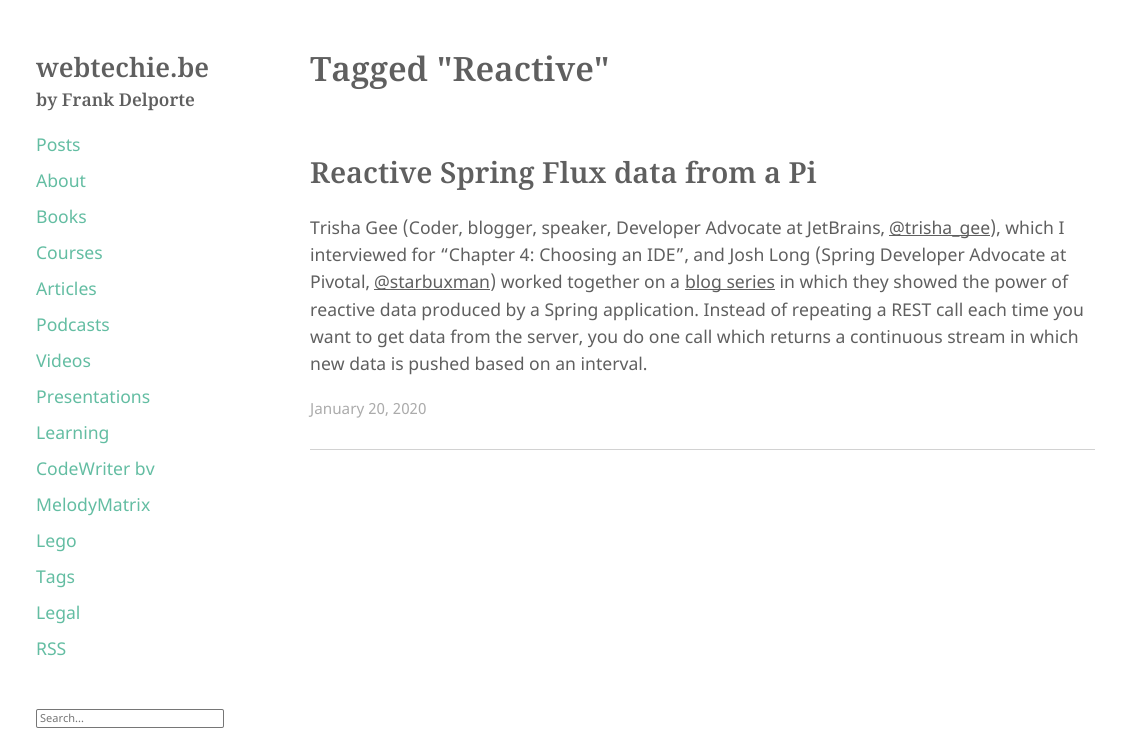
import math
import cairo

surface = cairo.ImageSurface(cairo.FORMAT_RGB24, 1121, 739)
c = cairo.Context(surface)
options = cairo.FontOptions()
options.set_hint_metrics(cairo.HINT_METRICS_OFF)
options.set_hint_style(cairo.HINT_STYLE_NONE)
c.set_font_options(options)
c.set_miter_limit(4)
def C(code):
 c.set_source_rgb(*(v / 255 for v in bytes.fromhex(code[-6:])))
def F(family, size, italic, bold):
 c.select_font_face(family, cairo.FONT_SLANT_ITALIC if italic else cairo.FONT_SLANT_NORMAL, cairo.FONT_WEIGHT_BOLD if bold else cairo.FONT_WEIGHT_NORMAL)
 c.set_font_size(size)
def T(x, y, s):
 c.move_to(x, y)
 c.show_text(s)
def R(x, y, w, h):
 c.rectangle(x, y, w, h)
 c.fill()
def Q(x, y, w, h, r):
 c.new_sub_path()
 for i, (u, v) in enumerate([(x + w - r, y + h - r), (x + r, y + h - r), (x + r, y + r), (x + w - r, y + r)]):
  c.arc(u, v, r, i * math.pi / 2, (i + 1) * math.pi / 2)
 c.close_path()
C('ffffff')
c.paint()
F('Noto Serif SemiBold',26.5,0,0)
C('5f5f5f')
T(36,77,'webtechie.be')
F('Noto Serif SemiBold',17.6,0,0)
T(36,106,'by Frank Delporte')
F('Noto Sans',17.6,0,0)
C('63bda2')
T(36,151,'Posts')
T(36,187,'About')
T(36,223,'Books')
T(36,259,'Courses')
T(36,295,'Articles')
T(36,331,'Podcasts')
T(36,367,'Videos')
T(36,403,'Presentations')
T(36,439,'Learning')
T(36,475,'CodeWriter bv')
T(36,511,'MelodyMatrix')
T(36,547,'Lego')
T(36,583,'Tags')
T(36,619,'Legal')
T(36,655,'RSS')
Q(36.5,709.5,187,18,1.5)
C('767676')
c.set_line_width(1)
c.stroke()
F('Noto Sans',11,0,0)
C('757575')
T(40,722,'Search...')
F('Noto Serif SemiBold',33.5,0,0)
C('5f5f5f')
T(310,81,'Tagged "Reactive"')
F('Noto Serif SemiBold',29,0,0)
T(310,183,'Reactive Spring Flux data from a Pi')
F('Noto Sans',17.6,0,0)
T(310,234,'Trisha Gee (Coder, blogger, speaker, Developer Advocate at JetBrains,')
R(889,235,101,1)
T(889,234,'@trisha_gee), which I')
T(310,261,'interviewed for “Chapter 4: Choosing an IDE”, and Josh Long (Spring Developer Advocate at')
T(310,288,'Pivotal,')
R(374,289,116,1)
T(374,288,'@starbuxman) worked together on a')
R(685,289,90,1)
T(685,288,'blog series in which they showed the power of')
T(310,316,'reactive data produced by a Spring application. Instead of repeating a REST call each time you')
T(310,343,'want to get data from the server, you do one call which returns a continuous stream in which')
T(310,370,'new data is pushed based on an interval.')
C('d2d2d2')
R(310,449,785,1)
F('Noto Sans',15.25,0,0)
C('ababab')
T(310,414,'January 20, 2020')
surface.write_to_png('o.png')
